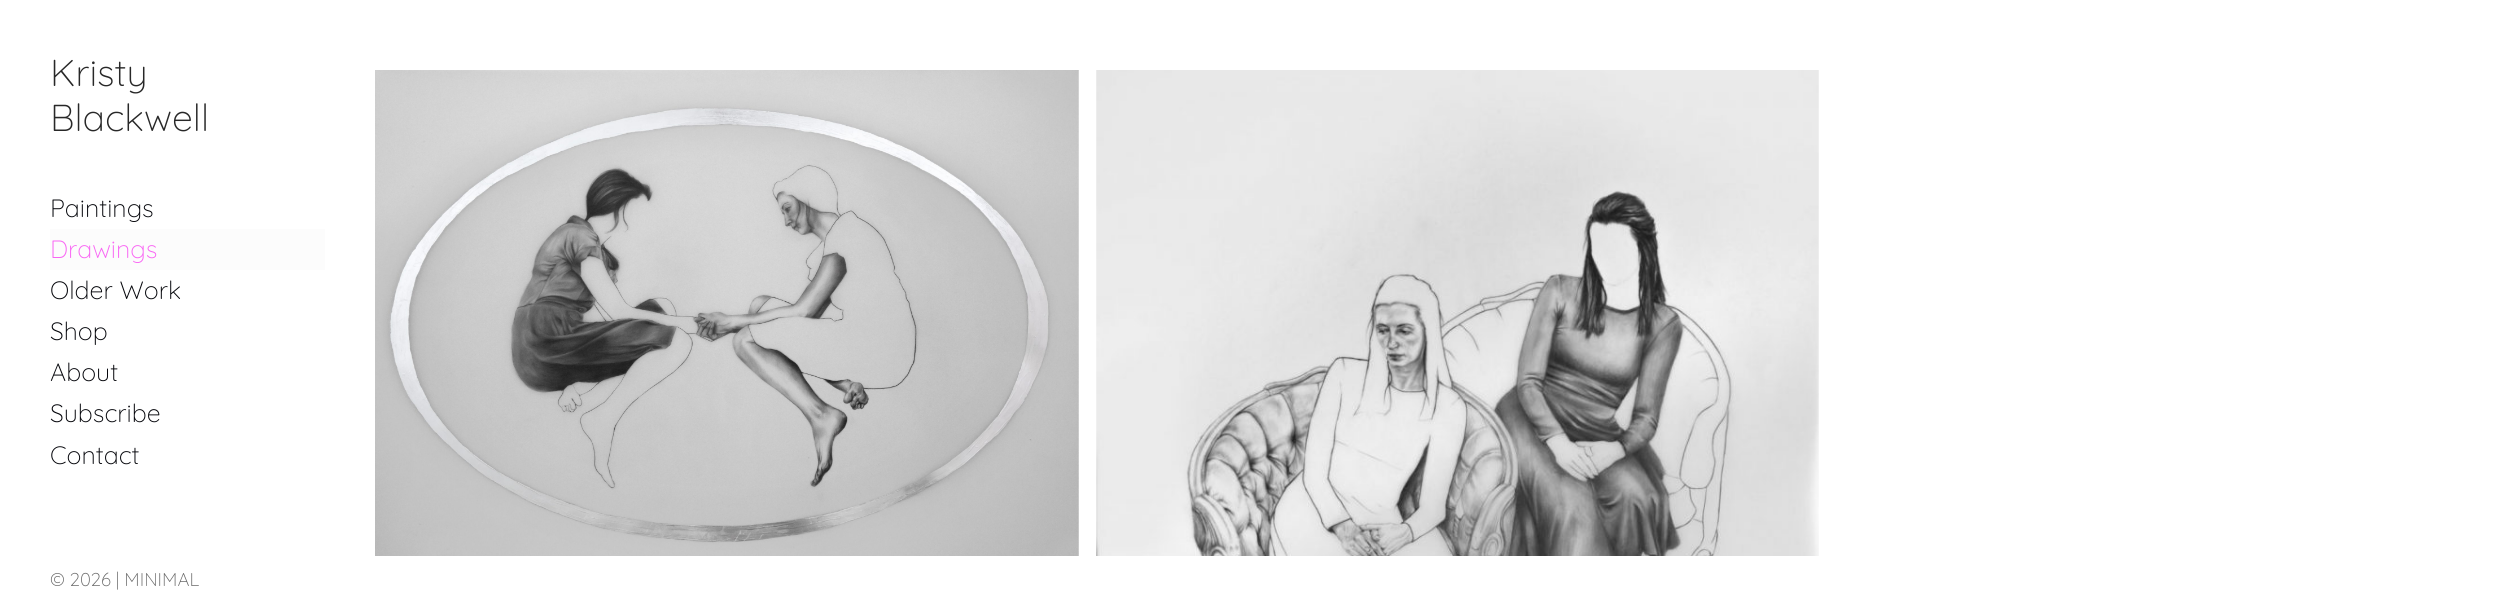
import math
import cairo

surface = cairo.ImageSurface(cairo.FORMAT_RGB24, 2514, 603)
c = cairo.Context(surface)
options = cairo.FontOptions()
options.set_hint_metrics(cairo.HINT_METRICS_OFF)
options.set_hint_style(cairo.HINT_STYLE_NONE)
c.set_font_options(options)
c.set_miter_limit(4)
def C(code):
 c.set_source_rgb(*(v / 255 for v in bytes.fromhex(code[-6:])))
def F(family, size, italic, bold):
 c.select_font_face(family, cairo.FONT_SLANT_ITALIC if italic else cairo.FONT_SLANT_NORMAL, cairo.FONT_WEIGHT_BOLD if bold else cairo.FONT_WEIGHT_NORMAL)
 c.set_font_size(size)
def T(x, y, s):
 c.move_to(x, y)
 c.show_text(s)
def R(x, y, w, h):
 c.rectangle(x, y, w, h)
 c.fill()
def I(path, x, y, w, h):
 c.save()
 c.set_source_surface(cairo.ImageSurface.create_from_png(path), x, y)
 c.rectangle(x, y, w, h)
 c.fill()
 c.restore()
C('ffffff')
c.paint()
F('Quicksand Light',37.5,0,0)
C('282828')
T(50,86,'Kristy')
T(50,131,'Blackwell')
F('Quicksand Light',25,0,0)
C('06070c')
T(50,217,'Paintings')
C('fcfcfc')
R(50,229,275,41)
C('f966f4')
T(50,258,'Drawings')
C('06070c')
T(50,299,'Older Work')
T(50,340,'Shop')
T(50,381,'About')
T(50,422,'Subscribe')
T(50,464,'Contact')
I('1.png',375,70,704,486)
I('2.png',1096,70,723,486)
F('Quicksand Light',18.5,0,0)
C('666666')
T(50,586,'© 2026 | MINIMAL')
surface.write_to_png('o.png')
